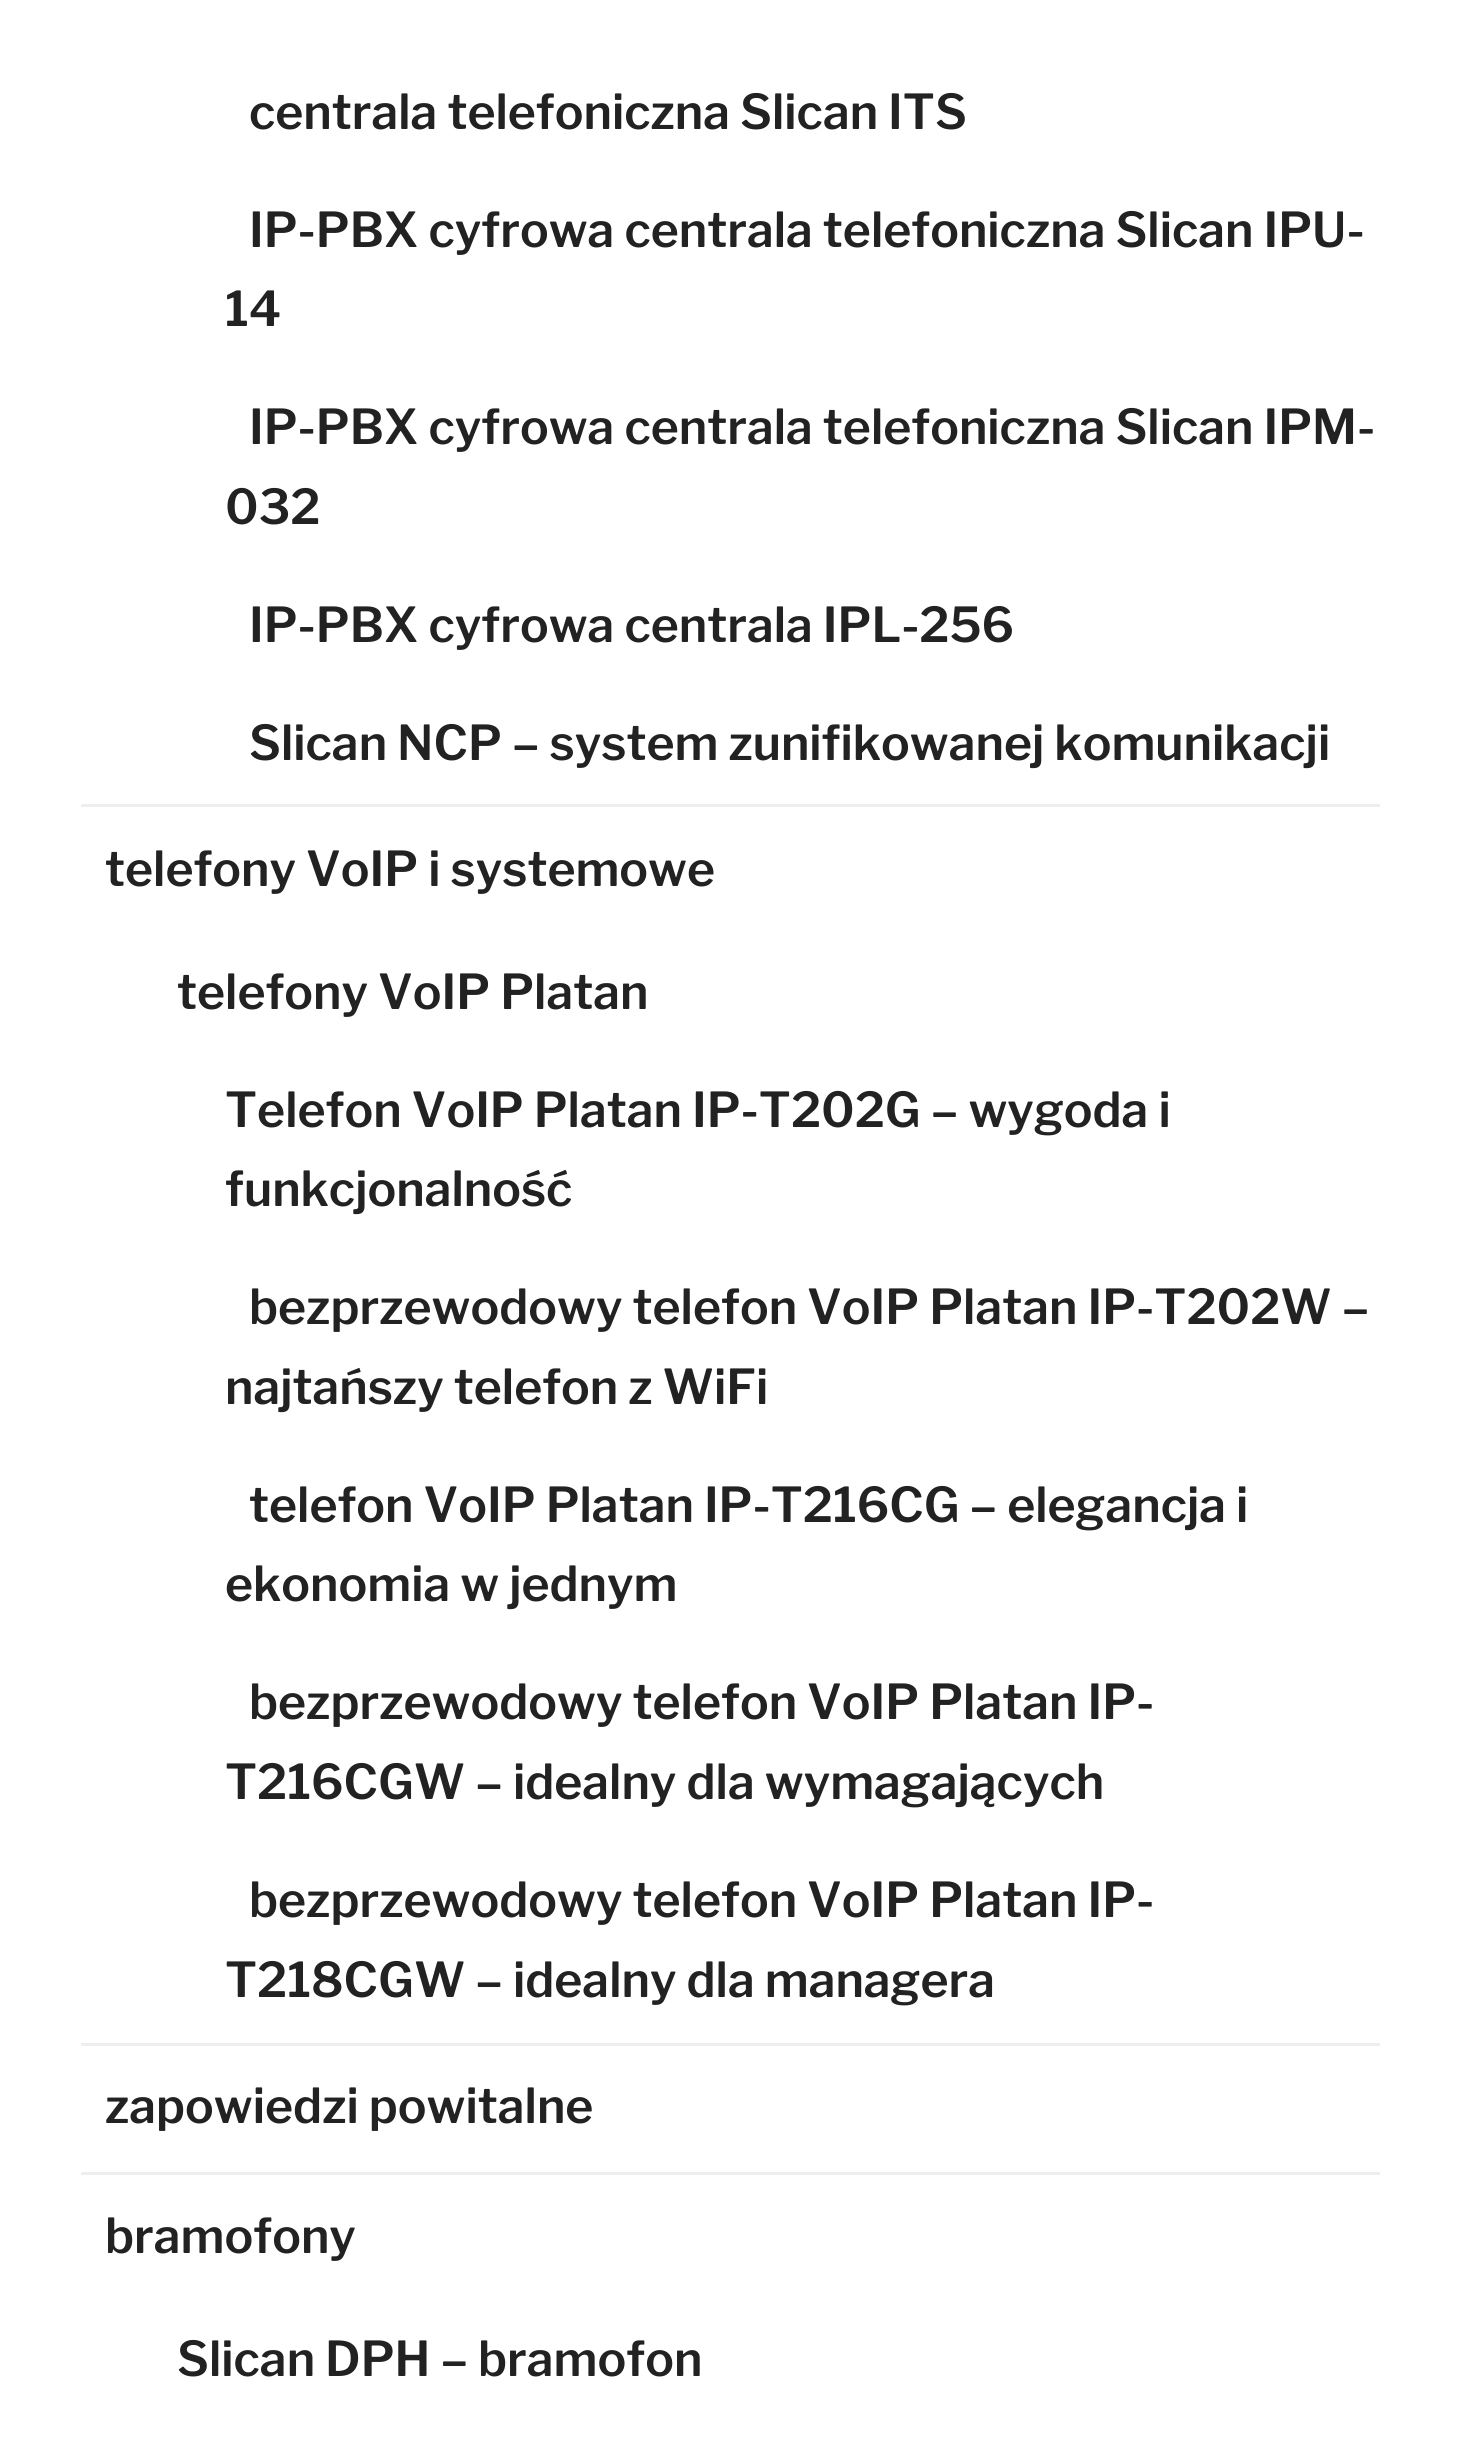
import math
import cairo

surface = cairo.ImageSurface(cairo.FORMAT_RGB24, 1461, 2461)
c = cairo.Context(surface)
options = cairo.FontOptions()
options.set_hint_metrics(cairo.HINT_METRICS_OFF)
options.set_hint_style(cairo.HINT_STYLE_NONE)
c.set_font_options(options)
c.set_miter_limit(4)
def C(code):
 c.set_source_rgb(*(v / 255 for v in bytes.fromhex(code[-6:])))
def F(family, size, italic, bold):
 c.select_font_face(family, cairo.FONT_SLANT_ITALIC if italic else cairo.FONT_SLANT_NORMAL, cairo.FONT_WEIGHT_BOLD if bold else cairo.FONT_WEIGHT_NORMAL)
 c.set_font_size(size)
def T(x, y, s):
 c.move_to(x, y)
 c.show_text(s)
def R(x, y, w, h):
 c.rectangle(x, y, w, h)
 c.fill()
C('ffffff')
c.paint()
C('eeeeee')
R(81,804,1299,3)
F('Libre Franklin Thin',48,0,0)
C('222222')
T(249,129,'centrala telefoniczna Slican ITS')
T(249,247,'IP-PBX cyfrowa centrala telefoniczna Slican IPU-')
T(225,326,'14')
T(249,444,'IP-PBX cyfrowa centrala telefoniczna Slican IPM-')
T(225,524,'032')
T(249,642,'IP-PBX cyfrowa centrala IPL-256')
T(249,760,'Slican NCP – system zunifikowanej komunikacji')
C('eeeeee')
R(81,2043,1299,3)
C('222222')
T(105,886,'telefony VoIP i systemowe')
T(177,1009,'telefony VoIP Platan')
T(225,1127,'Telefon VoIP Platan IP-T202G – wygoda i')
T(225,1206,'funkcjonalność')
T(249,1324,'bezprzewodowy telefon VoIP Platan IP-T202W –')
T(225,1404,'najtańszy telefon z WiFi')
T(249,1522,'telefon VoIP Platan IP-T216CG – elegancja i')
T(225,1601,'ekonomia w jednym')
T(249,1719,'bezprzewodowy telefon VoIP Platan IP-')
T(225,1799,'T216CGW – idealny dla wymagających')
T(249,1917,'bezprzewodowy telefon VoIP Platan IP-')
T(225,1997,'T218CGW – idealny dla managera')
C('eeeeee')
R(81,2172,1299,3)
C('222222')
T(105,2123,'zapowiedzi powitalne')
T(105,2253,'bramofony')
T(177,2376,'Slican DPH – bramofon')
surface.write_to_png('o.png')
